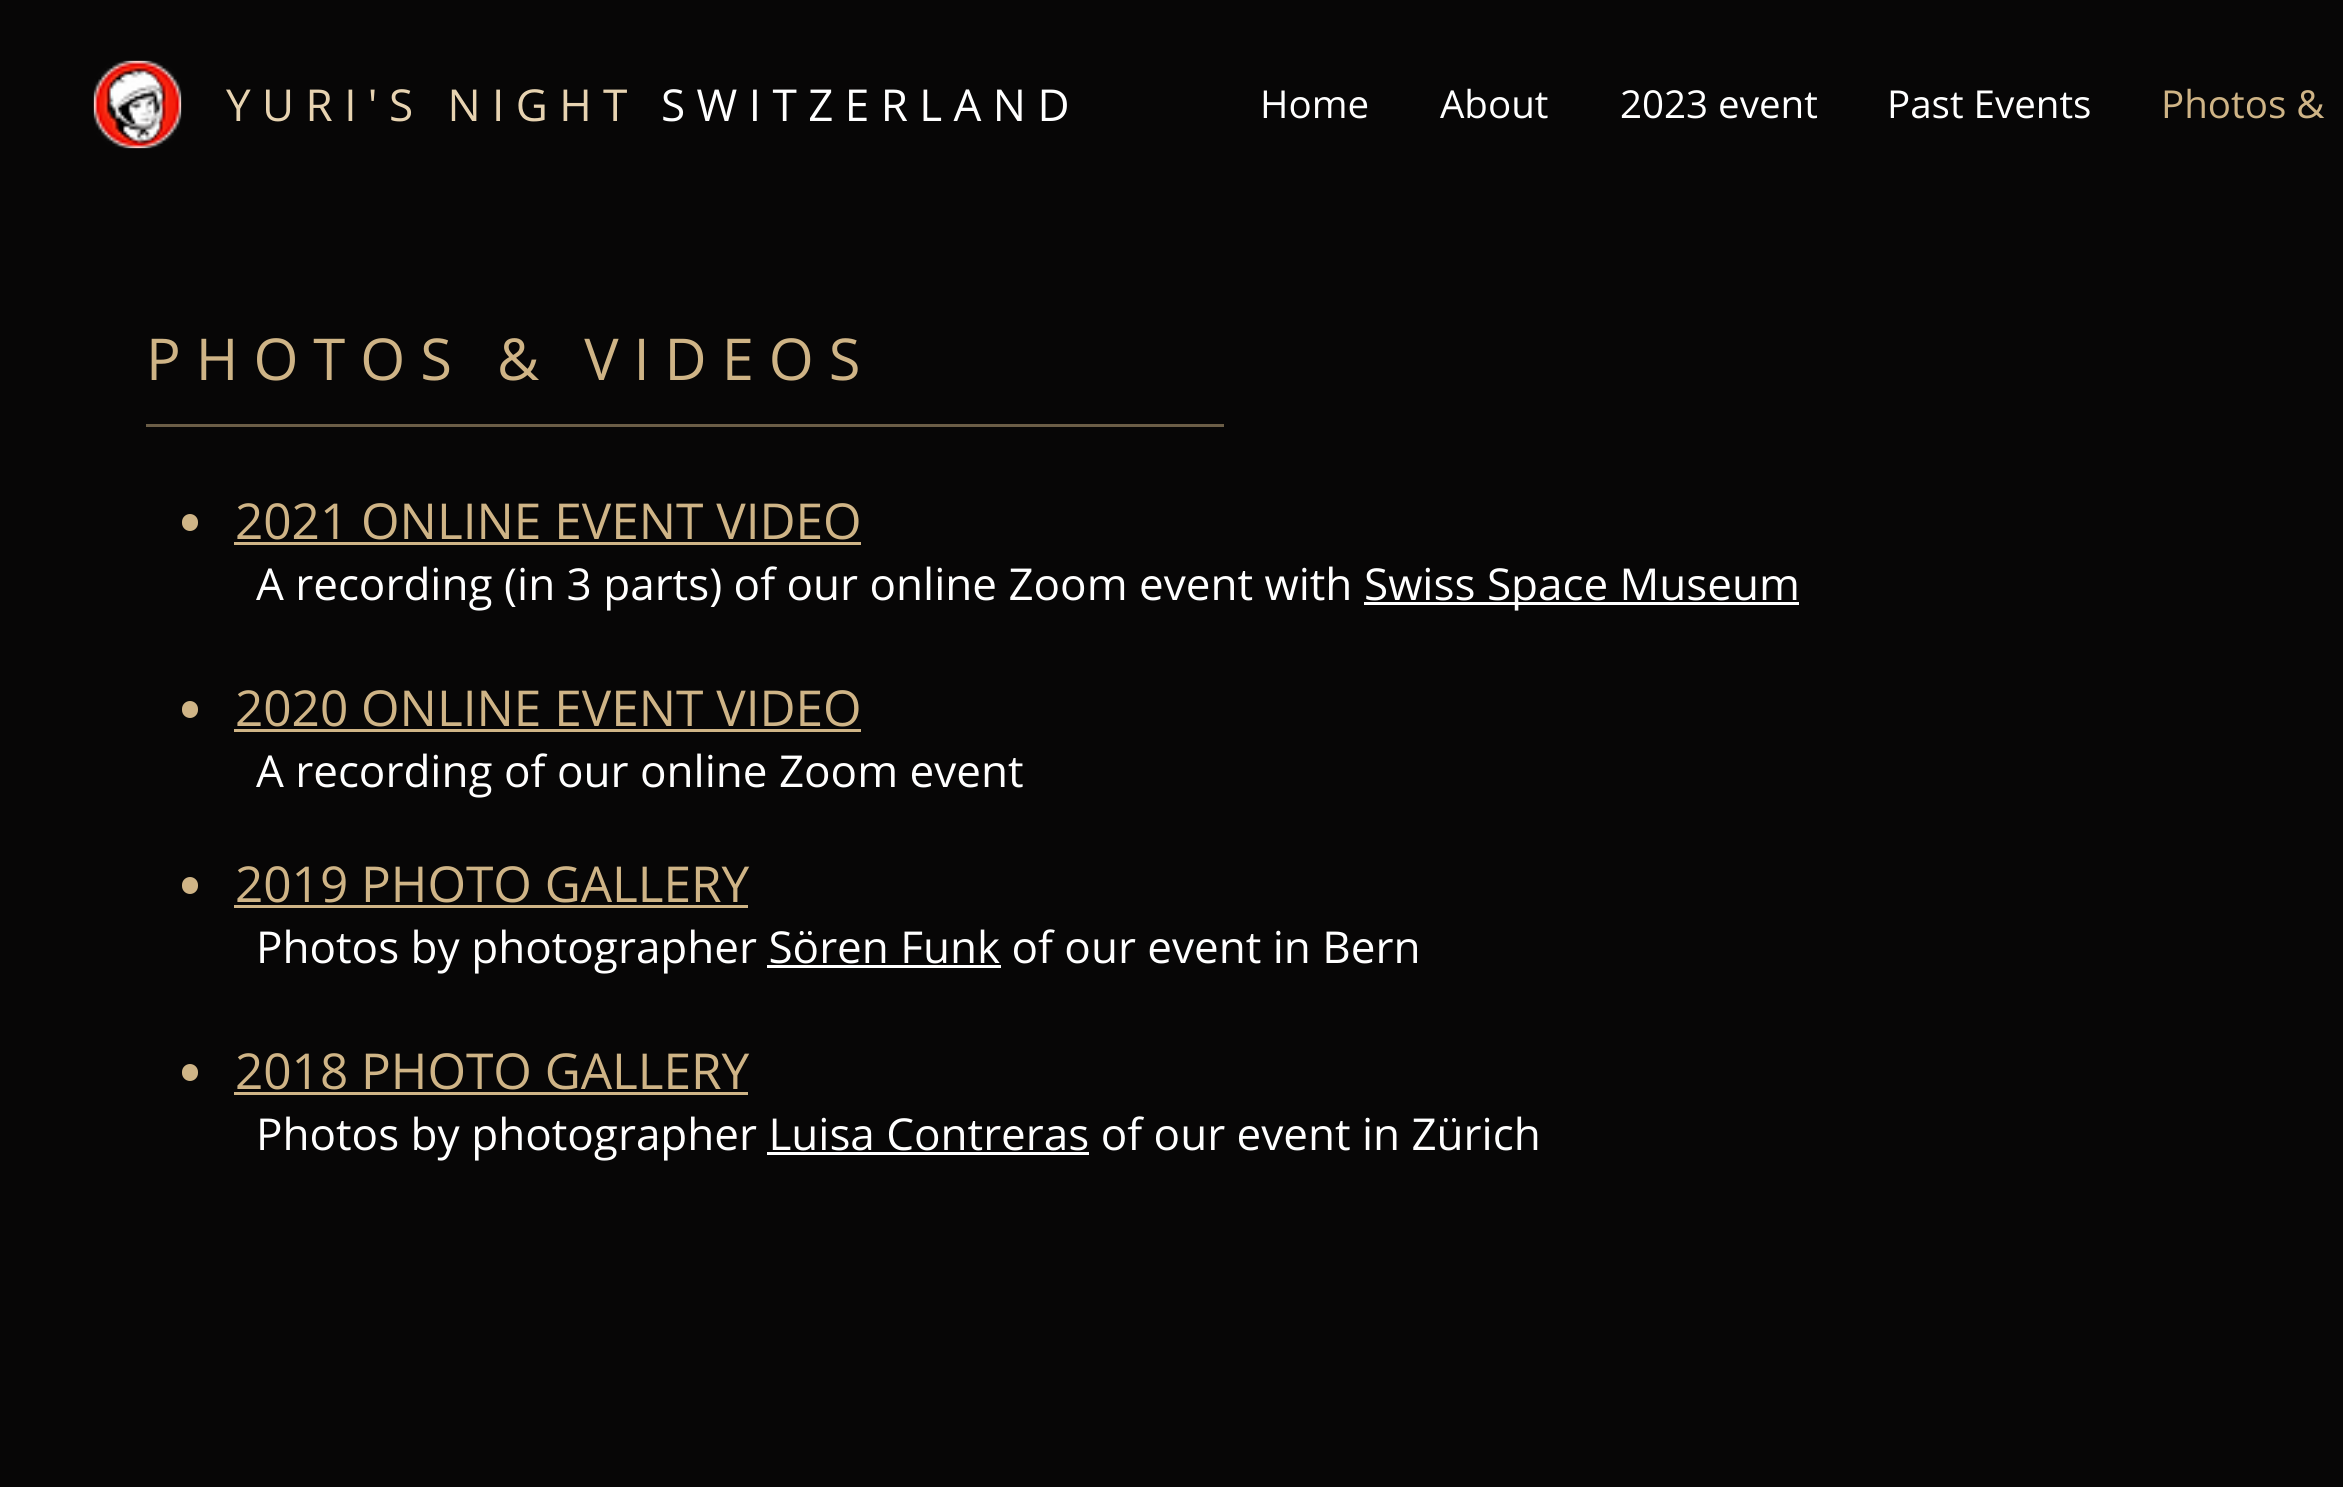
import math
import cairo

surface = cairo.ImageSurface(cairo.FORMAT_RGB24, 2343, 1487)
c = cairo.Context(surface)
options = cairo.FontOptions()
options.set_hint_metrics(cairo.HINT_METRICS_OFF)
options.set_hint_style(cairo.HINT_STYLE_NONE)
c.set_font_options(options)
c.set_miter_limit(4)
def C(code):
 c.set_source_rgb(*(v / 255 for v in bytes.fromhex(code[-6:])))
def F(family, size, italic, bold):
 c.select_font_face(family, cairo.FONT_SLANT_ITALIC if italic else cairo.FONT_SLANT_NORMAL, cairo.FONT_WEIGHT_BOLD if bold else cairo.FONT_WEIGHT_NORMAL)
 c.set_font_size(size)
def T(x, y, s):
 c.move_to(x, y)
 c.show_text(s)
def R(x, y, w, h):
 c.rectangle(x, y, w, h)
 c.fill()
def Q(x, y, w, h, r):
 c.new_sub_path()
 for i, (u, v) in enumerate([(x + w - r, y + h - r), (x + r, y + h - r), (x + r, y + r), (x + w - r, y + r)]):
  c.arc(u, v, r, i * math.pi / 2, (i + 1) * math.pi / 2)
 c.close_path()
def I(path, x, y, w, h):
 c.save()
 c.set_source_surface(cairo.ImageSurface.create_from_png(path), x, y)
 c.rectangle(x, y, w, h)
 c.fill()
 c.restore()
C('070606')
c.paint()
I('1.png',93,60,89,89)
F('Open Sans',44,0,0)
C('e7d3b1')
T(226,121,'Y U R I \' S   N I G H T')
C('ffffff')
T(661,121,'S W I T Z E R L A N D')
F('Open Sans',38.5,0,0)
T(1260,118,'Home')
T(1440,118,'About')
T(1620,118,'2023 event')
T(1887,118,'Past Events')
C('cfb486')
T(2161,118,'Photos &')
F('Open Sans',57.75,0,0)
T(146,380,'P H O T O S   &   V I D E O S')
C('6b5d46')
R(146,424,1078,3)
C('cfb486')
Q(182,514,16,17,8)
c.fill()
F('Open Sans',49.5,0,0)
T(235,539,'2021 ONLINE EVENT VIDEO')
R(234,542,627,3)
F('Open Sans',44,0,0)
C('ffffff')
T(256,600,'A recording (in 3 parts) of our online Zoom event with')
R(1364,602,435,3)
T(1364,600,'Swiss Space Museum')
C('cfb486')
Q(182,701,16,17,8)
c.fill()
F('Open Sans',49.5,0,0)
T(235,726,'2020 ONLINE EVENT VIDEO')
R(234,729,627,3)
F('Open Sans',44,0,0)
C('ffffff')
T(256,787,'A recording of our online Zoom event')
C('cfb486')
Q(182,877,16,17,8)
c.fill()
F('Open Sans',49.5,0,0)
T(235,902,'2019 PHOTO GALLERY')
R(234,905,514,3)
F('Open Sans',44,0,0)
C('ffffff')
T(256,963,'Photos by photographer Sören Funk of our event in Bern')
R(767,965,234,3)
C('cfb486')
Q(182,1064,16,17,8)
c.fill()
F('Open Sans',49.5,0,0)
T(235,1089,'2018 PHOTO GALLERY')
R(234,1092,514,3)
F('Open Sans',44,0,0)
C('ffffff')
T(256,1150,'Photos by photographer Luisa Contreras of our event in Zürich')
R(767,1152,322,3)
surface.write_to_png('o.png')
